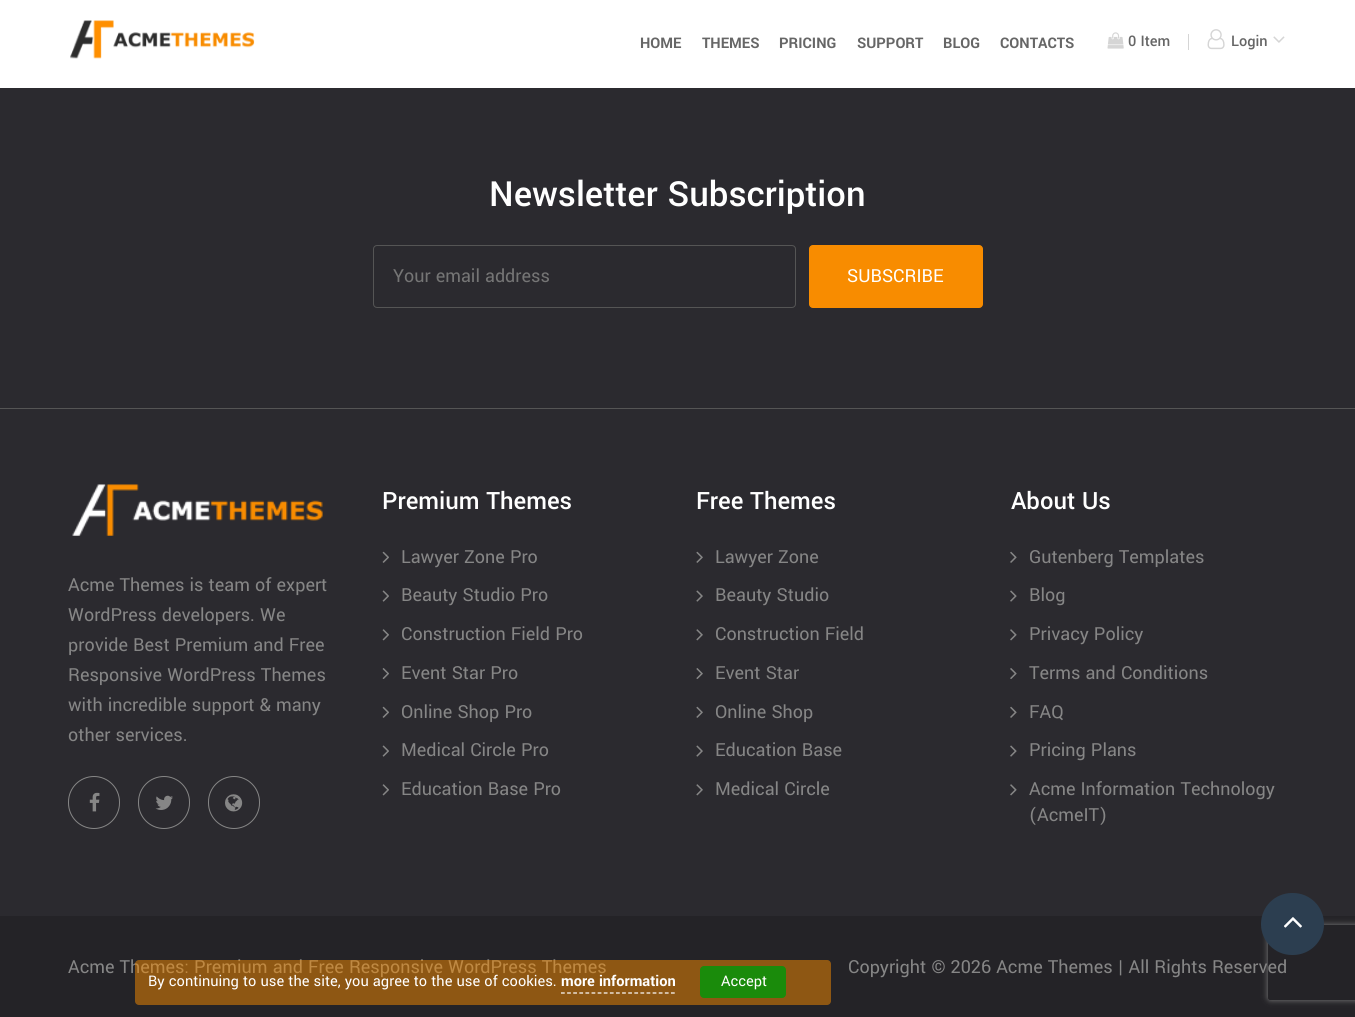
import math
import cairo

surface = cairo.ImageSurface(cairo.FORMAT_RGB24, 1355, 1017)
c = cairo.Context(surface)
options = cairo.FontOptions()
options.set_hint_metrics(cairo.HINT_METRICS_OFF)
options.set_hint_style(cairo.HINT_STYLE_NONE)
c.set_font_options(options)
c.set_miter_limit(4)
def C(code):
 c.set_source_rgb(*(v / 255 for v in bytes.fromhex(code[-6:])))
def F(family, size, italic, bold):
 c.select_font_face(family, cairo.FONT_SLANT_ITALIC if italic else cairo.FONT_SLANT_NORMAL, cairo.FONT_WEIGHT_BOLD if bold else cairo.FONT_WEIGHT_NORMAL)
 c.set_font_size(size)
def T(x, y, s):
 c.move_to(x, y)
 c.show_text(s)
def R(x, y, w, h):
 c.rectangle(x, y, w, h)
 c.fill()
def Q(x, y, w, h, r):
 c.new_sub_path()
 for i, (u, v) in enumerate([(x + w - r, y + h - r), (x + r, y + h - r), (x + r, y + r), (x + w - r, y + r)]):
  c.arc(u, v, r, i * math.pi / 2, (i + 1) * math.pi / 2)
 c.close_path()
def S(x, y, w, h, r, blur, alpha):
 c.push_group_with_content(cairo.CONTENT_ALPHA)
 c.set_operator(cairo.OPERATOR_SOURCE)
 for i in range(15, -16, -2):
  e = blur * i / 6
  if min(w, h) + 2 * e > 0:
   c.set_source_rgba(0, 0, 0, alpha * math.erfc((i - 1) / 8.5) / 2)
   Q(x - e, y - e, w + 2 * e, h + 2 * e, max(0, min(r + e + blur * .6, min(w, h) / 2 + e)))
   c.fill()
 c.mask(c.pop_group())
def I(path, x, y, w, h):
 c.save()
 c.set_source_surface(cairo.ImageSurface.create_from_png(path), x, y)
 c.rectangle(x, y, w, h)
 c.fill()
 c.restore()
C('2b2a2f')
c.paint()
C('ffffff')
R(0,0,1355,88)
I('1.png',70,20,185,39)
F('Yantramanav',16.25,0,1)
C('666666')
T(640,48,'HOME')
T(702,48,'THEMES')
T(779,48,'PRICING')
T(857,48,'SUPPORT')
T(943,48,'BLOG')
T(1000,48,'CONTACTS')
I('2.png',1107,32,17,17)
F('Yantramanav Medium',16.25,0,0)
T(1128,46,'0 Item')
C('d5d5d5')
R(1188,34,1,16)
I('3.png',1207,29,18,21)
C('666666')
T(1231,46,'Login')
I('4.png',1273,36,12,7)
C('555555')
R(0,408,1355,1)
F('Yantramanav Medium',38.5,0,0)
C('ffffff')
T(489,206,'Newsletter Subscription')
Q(373.5,245.5,422,62,3.5)
C('555555')
c.set_line_width(1)
c.stroke()
F('Yantramanav',20,0,0)
C('757575')
T(393,282,'Your email address')
C('f88c00')
Q(809.5,245.5,173,62,3.5)
c.fill_preserve()
c.stroke()
C('ffffff')
T(847,282,'SUBSCRIBE')
I('5.png',72,484,251,52)
C('868686')
T(68,591,'Acme Themes is team of expert')
T(68,621,'WordPress developers. We')
T(68,651,'provide Best Premium and Free')
T(68,681,'Responsive WordPress Themes')
T(68,711,'with incredible support & many')
T(68,741,'other services.')
Q(68.5,776.5,51,52,25.5)
c.stroke()
I('6.png',89,792,11,20)
Q(138.5,776.5,51,52,25.5)
c.stroke()
I('7.png',155,795,18,15)
Q(208.5,776.5,51,52,25.5)
c.stroke()
I('8.png',225,794,18,18)
F('Yantramanav Medium',26.5,0,0)
C('ffffff')
T(382,509,'Premium Themes')
I('9.png',382,551,7,12)
F('Yantramanav',20,0,0)
C('868686')
T(401,563,'Lawyer Zone Pro')
I('10.png',382,590,7,12)
T(401,601,'Beauty Studio Pro')
I('11.png',382,629,7,12)
T(401,640,'Construction Field Pro')
I('12.png',382,668,7,11)
T(401,679,'Event Star Pro')
I('9.png',382,706,7,12)
T(401,718,'Online Shop Pro')
I('10.png',382,745,7,12)
T(401,756,'Medical Circle Pro')
I('11.png',382,784,7,12)
T(401,795,'Education Base Pro')
F('Yantramanav Medium',26.5,0,0)
C('ffffff')
T(696,509,'Free Themes')
I('13.png',696,551,7,12)
F('Yantramanav',20,0,0)
C('868686')
T(715,563,'Lawyer Zone')
I('14.png',696,590,7,12)
T(715,601,'Beauty Studio')
I('15.png',696,629,7,12)
T(715,640,'Construction Field')
I('16.png',696,668,7,11)
T(715,679,'Event Star')
I('13.png',696,706,7,12)
T(715,718,'Online Shop')
I('14.png',696,745,7,12)
T(715,756,'Education Base')
I('15.png',696,784,7,12)
T(715,795,'Medical Circle')
F('Yantramanav Medium',26.5,0,0)
C('ffffff')
T(1011,509,'About Us')
I('17.png',1010,551,7,12)
F('Yantramanav',20,0,0)
C('868686')
T(1029,563,'Gutenberg Templates')
I('18.png',1010,590,7,12)
T(1029,601,'Blog')
I('19.png',1010,629,7,12)
T(1029,640,'Privacy Policy')
I('20.png',1010,668,7,11)
T(1029,679,'Terms and Conditions')
I('17.png',1010,706,7,12)
T(1029,718,'FAQ')
I('18.png',1010,745,7,12)
T(1029,756,'Pricing Plans')
I('19.png',1010,784,7,12)
T(1029,795,'Acme Information Technology')
T(1029,821,'(AcmeIT)')
C('242327')
R(0,916,1355,101)
C('868686')
T(68,973,'Acme Themes: Premium and Free Responsive WordPress Themes')
T(848,973,'Copyright © 2026 Acme Themes | All Rights Reserved')
c.set_source_rgba(0.973,0.549,0,0.5)
Q(135,960,696,45,4)
c.fill()
F('Yantramanav',16.25,0,0)
C('ffffff')
T(148,986,'By continuing to use the site, you agree to the use of cookies.')
F('Yantramanav',16.25,0,1)
T(561,986,'more information')
c.new_path()
c.move_to(561,993)
c.line_to(675,993)
c.set_line_width(1.2)
c.set_dash([3.75,2.36])
c.stroke()
C('1a8b0b')
Q(700,966,86,32,4)
c.fill()
F('Yantramanav',16.25,0,0)
C('ffffff')
T(721,986,'Accept')
c.save()
c.set_fill_rule(cairo.FILL_RULE_EVEN_ODD)
c.new_path()
c.move_to(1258,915)
c.line_to(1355,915)
c.line_to(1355,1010)
c.line_to(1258,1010)
c.close_path()
c.move_to(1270.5,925)
c.line_to(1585.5,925)
c.curve_to(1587,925,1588,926,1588,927.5)
c.line_to(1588,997.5)
c.curve_to(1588,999,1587,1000,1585.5,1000)
c.line_to(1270.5,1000)
c.curve_to(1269,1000,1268,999,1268,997.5)
c.line_to(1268,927.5)
c.curve_to(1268,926,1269,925,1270.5,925)
c.close_path()
c.clip()
C('808080')
S(1268,925,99,75,2.5,3,1)
c.restore()
C('2c3e50')
Q(1261,893,63,62,31)
c.fill()
I('21.png',1284,917,18,11)
surface.write_to_png('o.png')
